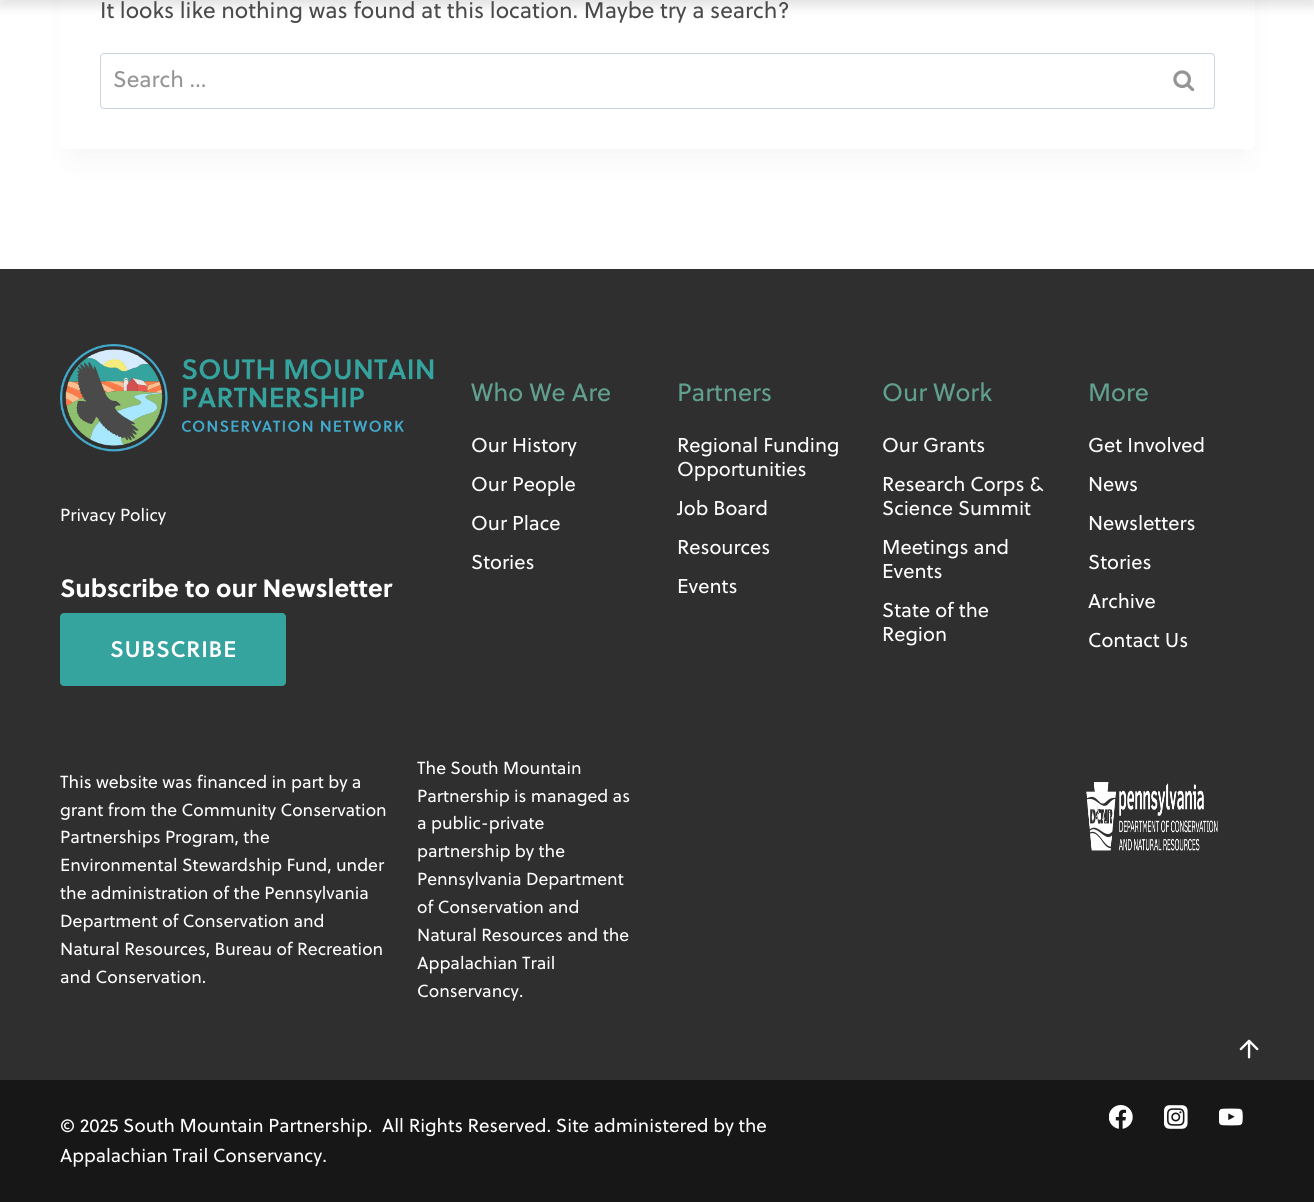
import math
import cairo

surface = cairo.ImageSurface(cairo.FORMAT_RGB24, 1314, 1202)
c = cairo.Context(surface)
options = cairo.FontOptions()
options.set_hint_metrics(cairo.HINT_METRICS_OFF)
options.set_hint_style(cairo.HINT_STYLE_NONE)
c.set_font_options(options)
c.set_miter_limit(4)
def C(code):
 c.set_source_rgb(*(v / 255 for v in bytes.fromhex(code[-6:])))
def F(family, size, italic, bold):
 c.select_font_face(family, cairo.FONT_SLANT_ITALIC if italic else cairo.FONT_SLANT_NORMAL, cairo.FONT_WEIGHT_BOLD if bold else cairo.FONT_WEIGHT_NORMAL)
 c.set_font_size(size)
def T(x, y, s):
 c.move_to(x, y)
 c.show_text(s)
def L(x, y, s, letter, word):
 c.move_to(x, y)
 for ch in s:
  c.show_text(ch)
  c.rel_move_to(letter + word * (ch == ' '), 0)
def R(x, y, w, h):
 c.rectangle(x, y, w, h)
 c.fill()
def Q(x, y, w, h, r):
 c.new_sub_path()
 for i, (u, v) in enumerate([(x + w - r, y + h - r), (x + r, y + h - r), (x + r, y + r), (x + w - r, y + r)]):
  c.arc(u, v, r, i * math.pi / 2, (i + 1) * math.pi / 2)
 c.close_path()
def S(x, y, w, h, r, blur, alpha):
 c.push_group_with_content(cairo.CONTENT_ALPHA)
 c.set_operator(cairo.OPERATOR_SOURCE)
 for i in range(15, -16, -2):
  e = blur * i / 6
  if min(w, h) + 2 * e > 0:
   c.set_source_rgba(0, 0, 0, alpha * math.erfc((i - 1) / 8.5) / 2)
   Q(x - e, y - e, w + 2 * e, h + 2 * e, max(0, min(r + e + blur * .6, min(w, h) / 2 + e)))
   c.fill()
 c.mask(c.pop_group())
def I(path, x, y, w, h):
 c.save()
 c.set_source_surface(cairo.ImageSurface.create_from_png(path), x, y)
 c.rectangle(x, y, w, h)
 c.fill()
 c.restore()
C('ffffff')
c.paint()
C('000000')
S(73,-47,1170,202,0,15.5,.05)
C('ffffff')
Q(60,-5,1195,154,5)
c.fill()
C('000000')
S(0,-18,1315,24,0,6,.12)
F('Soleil',22.5,0,0)
C('4a4a4a')
T(100,18,'It looks like nothing was found at this location. Maybe try a search?')
Q(100.5,53.5,1114,55,3.5)
C('cbd5e0')
c.set_line_width(1)
c.stroke()
C('949494')
T(113,87,'Search …')
I('1.png',1173,70,22,21)
C('2f2f2f')
R(0,269,1314,811)
I('2.png',60,344,374,108)
F('Soleil',17.5,0,0)
C('ffffff')
T(60,521,'Privacy Policy')
F('Soleil',25,0,1)
T(60,597,'Subscribe to our Newsletter')
C('35a39e')
Q(60,613,226,73,4)
c.fill()
F('Soleil SemiBold',22.5,0,0)
C('ffffff')
L(110,657,'SUBSCRIBE',.75,0)
F('Soleil',25,0,0)
C('61a08e')
T(471,401,'Who We Are')
F('Soleil',20,0,0)
C('ffffff')
T(471,452,'Our History')
T(471,491,'Our People')
T(471,530,'Our Place')
T(471,569,'Stories')
F('Soleil',25,0,0)
C('61a08e')
T(677,401,'Partners')
F('Soleil',20,0,0)
C('ffffff')
T(677,452,'Regional Funding')
T(677,476,'Opportunities')
T(677,515,'Job Board')
T(677,554,'Resources')
T(677,593,'Events')
F('Soleil',25,0,0)
C('61a08e')
T(882,401,'Our Work')
F('Soleil',20,0,0)
C('ffffff')
T(882,452,'Our Grants')
T(882,491,'Research Corps &')
T(882,515,'Science Summit')
T(882,554,'Meetings and')
T(882,578,'Events')
T(882,617,'State of the')
T(882,641,'Region')
F('Soleil',25,0,0)
C('61a08e')
T(1088,401,'More')
F('Soleil',20,0,0)
C('ffffff')
T(1088,452,'Get Involved')
T(1088,491,'News')
T(1088,530,'Newsletters')
T(1088,569,'Stories')
T(1088,608,'Archive')
T(1088,647,'Contact Us')
F('Soleil',17.5,0,0)
T(60,788,'This website was financed in part by a')
T(60,816,'grant from the Community Conservation')
T(60,843,'Partnerships Program, the')
T(60,871,'Environmental Stewardship Fund, under')
T(60,899,'the administration of the Pennsylvania')
T(60,927,'Department of Conservation and')
T(60,955,'Natural Resources, Bureau of Recreation')
T(60,983,'and Conservation.')
T(417,774,'The South Mountain')
T(417,802,'Partnership is managed as')
T(417,829,'a public-private')
T(417,857,'partnership by the')
T(417,885,'Pennsylvania Department')
T(417,913,'of Conservation and')
T(417,941,'Natural Resources and the')
T(417,969,'Appalachian Trail')
T(417,997,'Conservancy.')
I('3.png',1086,782,132,69)
C('171717')
R(0,1080,1314,122)
F('Soleil',18.75,0,0)
C('ffffff')
T(60,1132,'© 2025 South Mountain Partnership.')
T(382,1132,'All Rights Reserved. Site administered by the')
T(60,1162,'Appalachian Trail Conservancy.')
I('4.png',1109,1105,24,24)
I('5.png',1164,1105,24,24)
I('6.png',1219,1108,24,18)
I('7.png',1239,1039,20,20)
surface.write_to_png('o.png')
